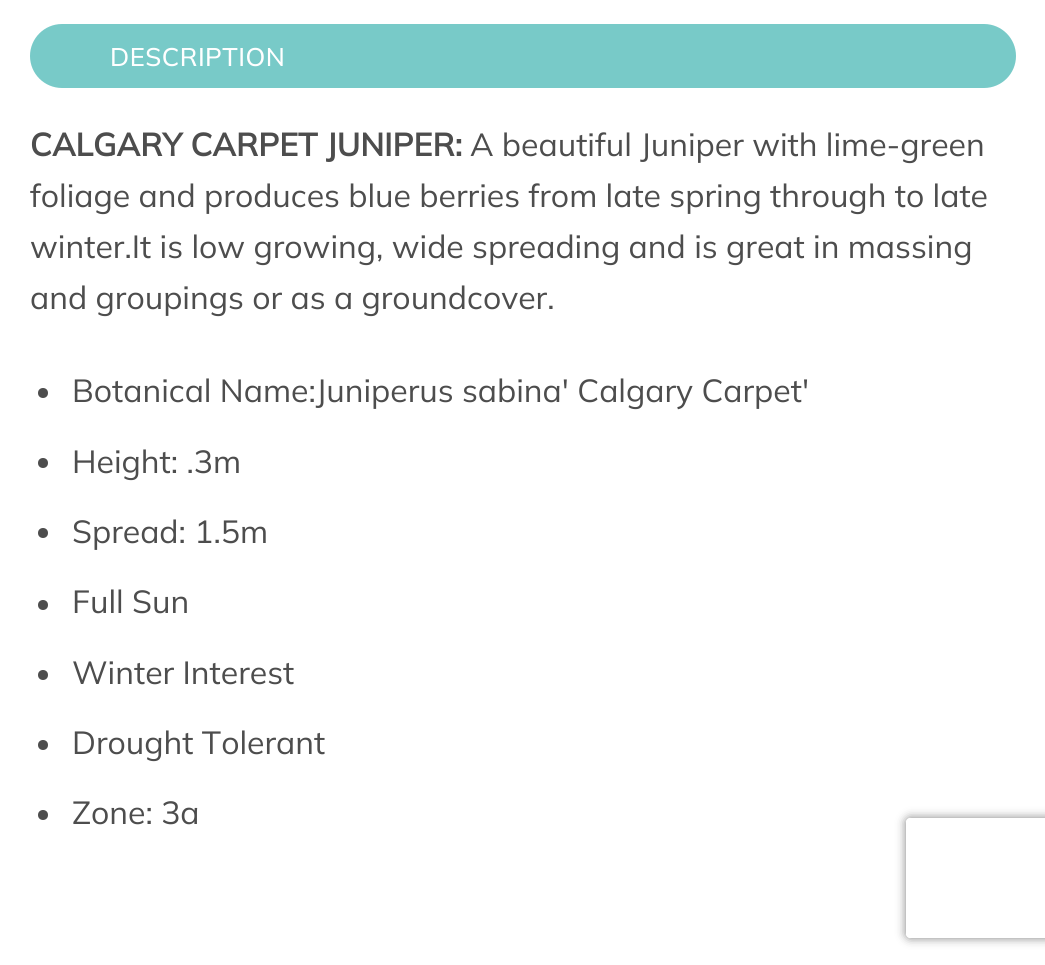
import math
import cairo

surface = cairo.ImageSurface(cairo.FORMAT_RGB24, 1045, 965)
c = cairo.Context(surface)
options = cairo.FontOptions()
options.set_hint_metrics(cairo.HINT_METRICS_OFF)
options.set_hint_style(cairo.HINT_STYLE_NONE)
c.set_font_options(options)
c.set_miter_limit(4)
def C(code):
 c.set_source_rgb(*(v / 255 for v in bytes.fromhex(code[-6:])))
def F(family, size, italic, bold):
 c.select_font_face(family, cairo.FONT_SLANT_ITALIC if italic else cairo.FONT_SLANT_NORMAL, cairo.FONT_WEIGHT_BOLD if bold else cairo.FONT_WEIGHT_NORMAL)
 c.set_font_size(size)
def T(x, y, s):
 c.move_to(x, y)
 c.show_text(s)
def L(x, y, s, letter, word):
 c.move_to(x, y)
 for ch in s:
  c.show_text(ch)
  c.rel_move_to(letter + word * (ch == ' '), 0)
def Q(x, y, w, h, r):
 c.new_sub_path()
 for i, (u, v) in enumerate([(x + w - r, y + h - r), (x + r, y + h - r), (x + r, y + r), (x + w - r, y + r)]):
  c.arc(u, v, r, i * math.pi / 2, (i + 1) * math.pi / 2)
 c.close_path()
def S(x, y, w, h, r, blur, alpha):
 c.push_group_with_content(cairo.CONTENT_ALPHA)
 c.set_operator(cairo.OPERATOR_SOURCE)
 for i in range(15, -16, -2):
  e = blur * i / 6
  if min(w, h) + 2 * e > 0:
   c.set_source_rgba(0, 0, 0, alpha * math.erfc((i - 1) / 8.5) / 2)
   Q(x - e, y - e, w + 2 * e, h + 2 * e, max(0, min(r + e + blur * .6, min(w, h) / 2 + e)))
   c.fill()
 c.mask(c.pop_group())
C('ffffff')
c.paint()
C('78cac8')
Q(30,24,986,64,32)
c.fill()
F('Mulish Medium',25.5,0,0)
C('ffffff')
L(110,66,'DESCRIPTION',.5,0)
F('Mulish',32,0,1)
C('4d4d4d')
T(30,156,'CALGARY CARPET JUNIPER:')
F('Mulish',32,0,0)
T(470,156,'A beautiful Juniper with lime-green')
T(30,207,'foliage and produces blue berries from late spring through to late')
T(30,258,'winter.It is low growing, wide spreading and is great in massing')
T(30,309,'and groupings or as a groundcover.')
c.new_path()
c.arc(43,393,5,0,2 * math.pi)
c.fill()
T(72,402,'Botanical Name:Juniperus sabina\' Calgary Carpet\'')
c.new_path()
c.arc(43,463,5,0,2 * math.pi)
c.fill()
T(72,473,'Height: .3m')
c.new_path()
c.arc(43,533,5,0,2 * math.pi)
c.fill()
T(72,543,'Spread: 1.5m')
c.new_path()
c.arc(43,605,5,0,2 * math.pi)
c.fill()
T(72,613,'Full Sun')
c.new_path()
c.arc(43,675,5,0,2 * math.pi)
c.fill()
T(72,684,'Winter Interest')
c.new_path()
c.arc(43,745,5,0,2 * math.pi)
c.fill()
T(72,754,'Drought Tolerant')
c.new_path()
c.arc(43,815,5,0,2 * math.pi)
c.fill()
T(72,824,'Zone: 3a')
c.save()
c.set_fill_rule(cairo.FILL_RULE_EVEN_ODD)
c.new_path()
c.move_to(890,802)
c.line_to(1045,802)
c.line_to(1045,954)
c.line_to(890,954)
c.close_path()
c.move_to(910,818)
c.line_to(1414,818)
c.curve_to(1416,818,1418,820,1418,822)
c.line_to(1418,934)
c.curve_to(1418,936,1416,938,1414,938)
c.line_to(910,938)
c.curve_to(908,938,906,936,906,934)
c.line_to(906,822)
c.curve_to(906,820,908,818,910,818)
c.close_path()
c.clip()
C('808080')
S(906,818,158,120,4,5,1)
c.restore()
surface.write_to_png('o.png')
